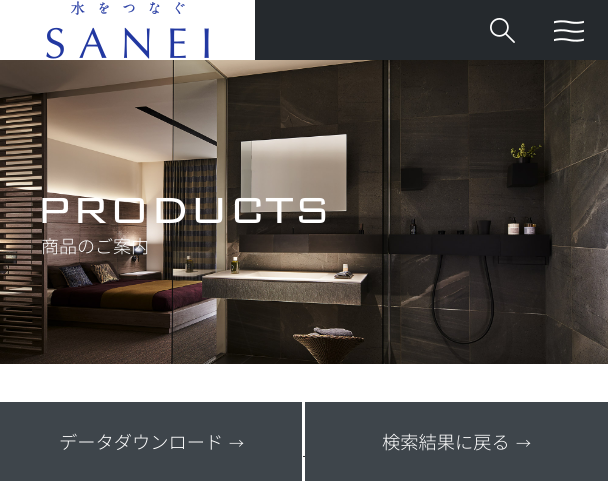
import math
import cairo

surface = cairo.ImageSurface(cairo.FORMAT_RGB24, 608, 481)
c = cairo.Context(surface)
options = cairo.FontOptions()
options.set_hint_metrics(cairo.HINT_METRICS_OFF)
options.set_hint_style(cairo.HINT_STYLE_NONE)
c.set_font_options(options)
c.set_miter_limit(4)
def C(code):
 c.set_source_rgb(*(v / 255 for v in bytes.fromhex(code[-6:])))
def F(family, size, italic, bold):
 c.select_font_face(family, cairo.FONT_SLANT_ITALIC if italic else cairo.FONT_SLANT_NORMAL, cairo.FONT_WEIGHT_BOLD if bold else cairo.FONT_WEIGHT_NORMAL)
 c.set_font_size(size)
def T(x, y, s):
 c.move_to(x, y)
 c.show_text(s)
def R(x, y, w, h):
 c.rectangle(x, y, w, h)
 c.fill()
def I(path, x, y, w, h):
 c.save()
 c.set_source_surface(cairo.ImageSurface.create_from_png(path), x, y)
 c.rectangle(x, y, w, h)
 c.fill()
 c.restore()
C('25292d')
c.paint()
C('ffffff')
R(0,0,255,60)
I('1.png',46,1,163,58)
I('2.png',490,18,25,25)
I('3.png',554,20,30,22)
R(0,364,608,117)
I('4.png',0,60,608,304)
F('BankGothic',48.5,0,0)
T(36,223,'PRODUCTS')
F('Noto Sans JP Light',18,0,0)
T(41,253,'商品のご案内')
C('333333')
R(303,456,2,1)
C('3e454b')
R(0,402,302,79)
F('Noto Sans JP Light',18.25,0,0)
C('ffffff')
T(59,449,'データダウンロード')
F('Noto Sans JP Light',15,0,0)
T(229,449,'→')
C('3e454b')
R(305,402,303,79)
F('Noto Sans JP Light',18.25,0,0)
C('ffffff')
T(382,449,'検索結果に戻る')
F('Noto Sans JP Light',15,0,0)
T(516,449,'→')
surface.write_to_png('o.png')
